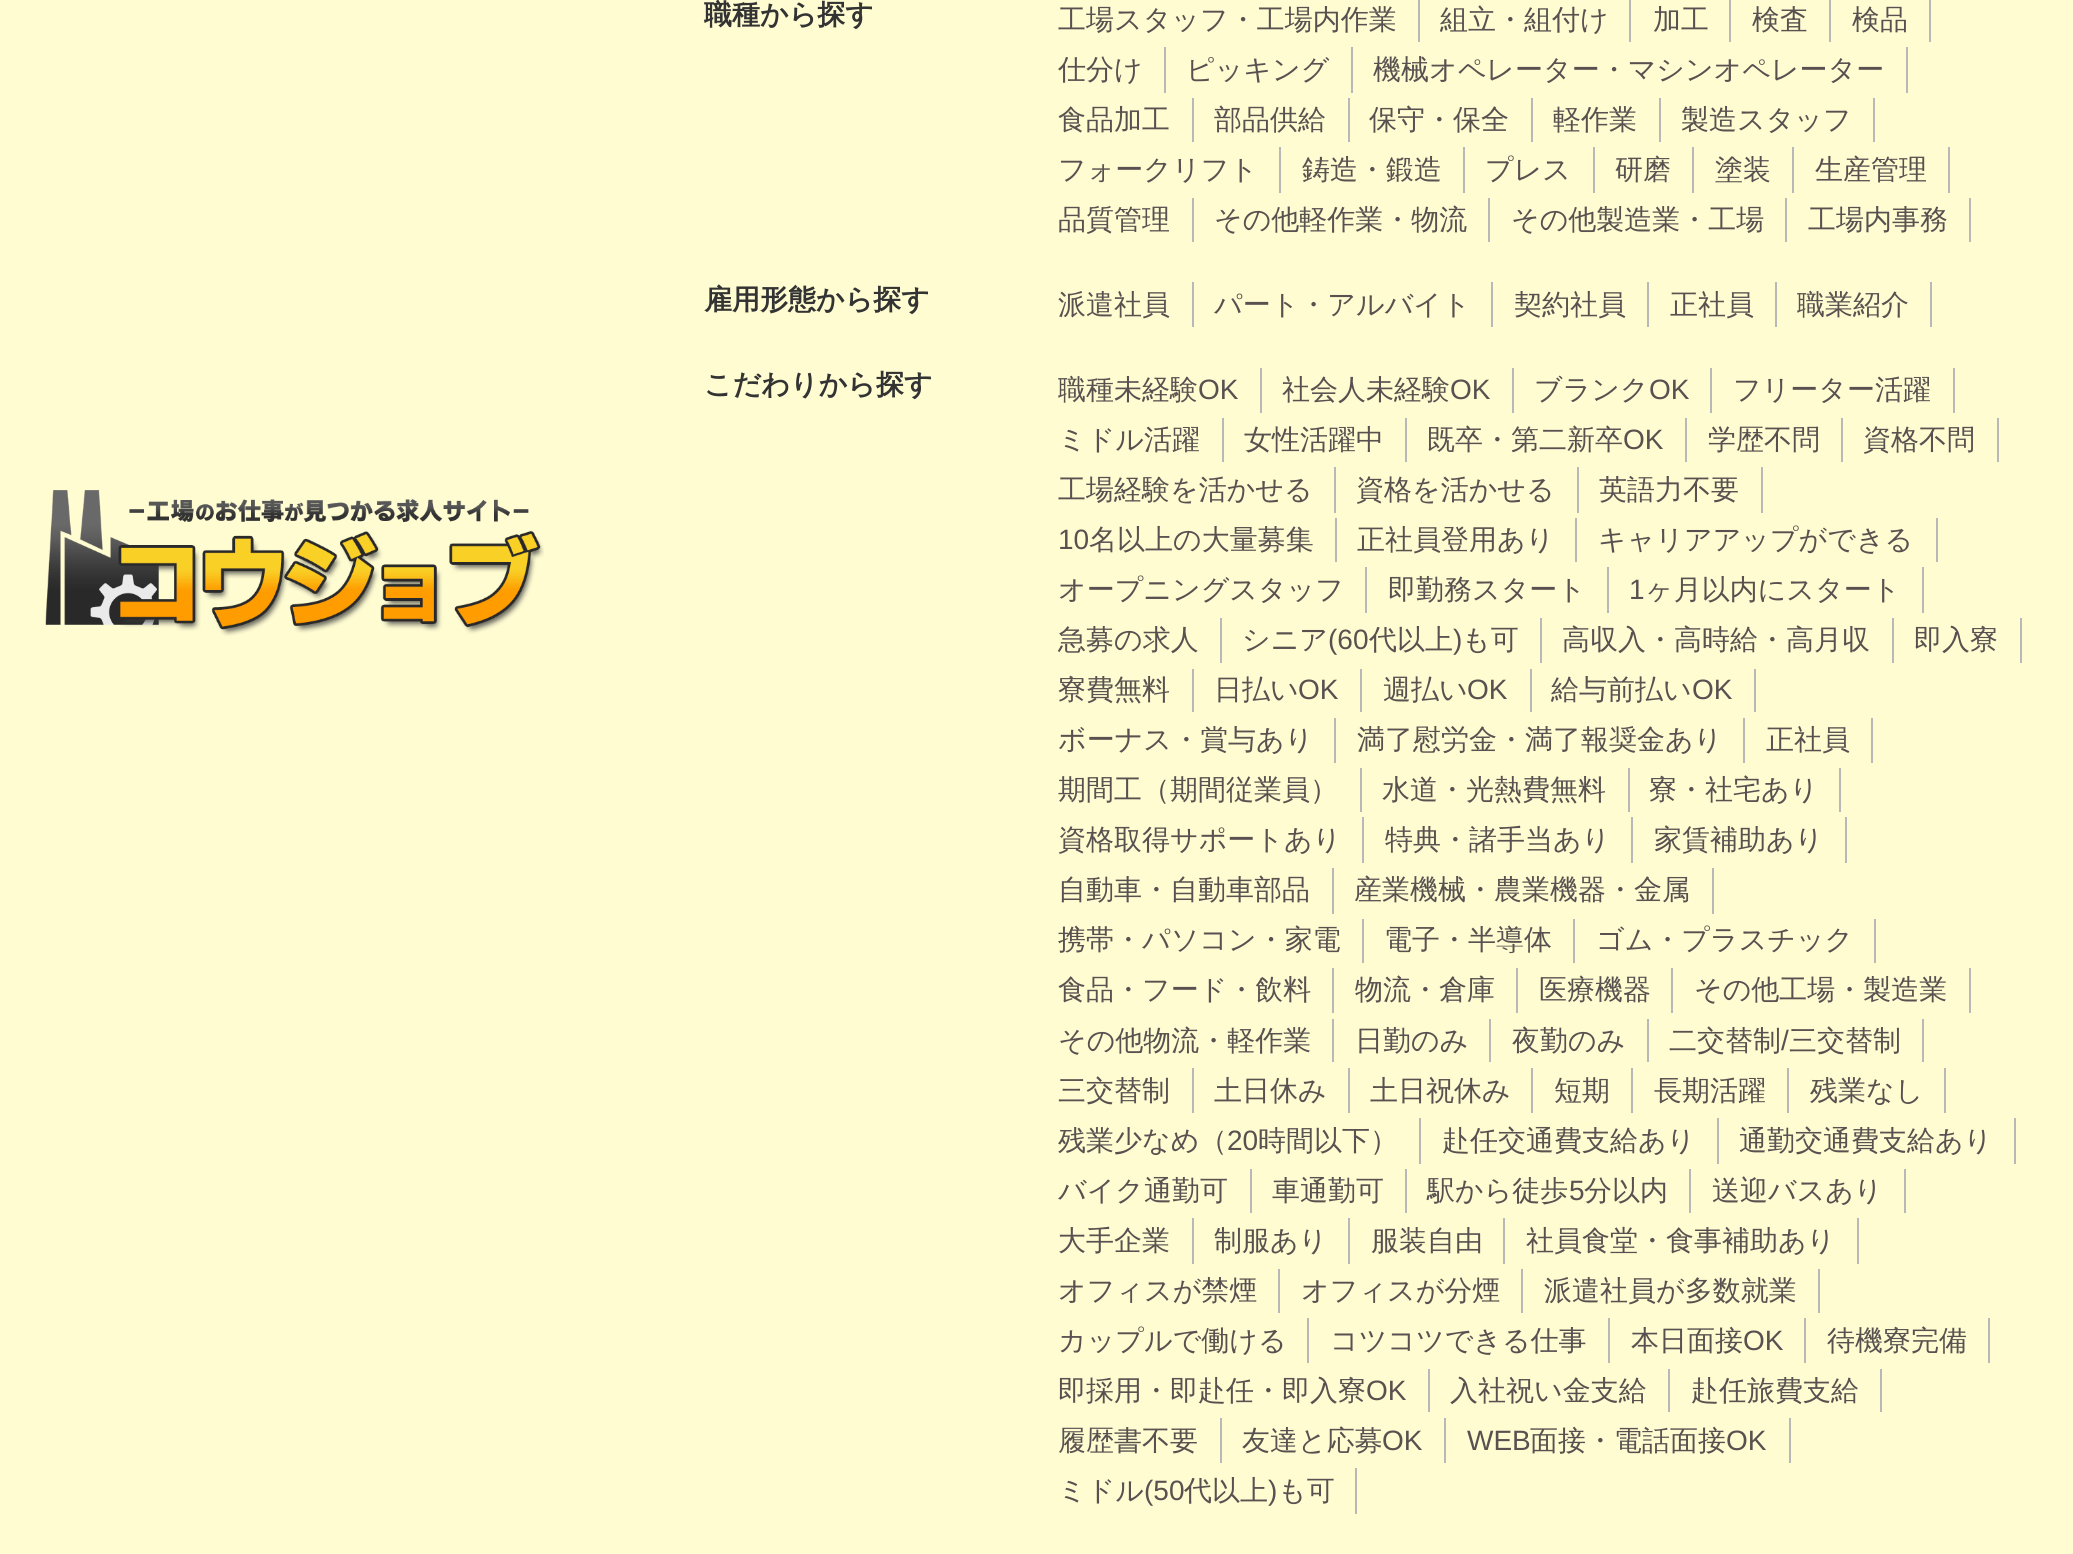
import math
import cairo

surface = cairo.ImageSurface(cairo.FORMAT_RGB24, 2073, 1554)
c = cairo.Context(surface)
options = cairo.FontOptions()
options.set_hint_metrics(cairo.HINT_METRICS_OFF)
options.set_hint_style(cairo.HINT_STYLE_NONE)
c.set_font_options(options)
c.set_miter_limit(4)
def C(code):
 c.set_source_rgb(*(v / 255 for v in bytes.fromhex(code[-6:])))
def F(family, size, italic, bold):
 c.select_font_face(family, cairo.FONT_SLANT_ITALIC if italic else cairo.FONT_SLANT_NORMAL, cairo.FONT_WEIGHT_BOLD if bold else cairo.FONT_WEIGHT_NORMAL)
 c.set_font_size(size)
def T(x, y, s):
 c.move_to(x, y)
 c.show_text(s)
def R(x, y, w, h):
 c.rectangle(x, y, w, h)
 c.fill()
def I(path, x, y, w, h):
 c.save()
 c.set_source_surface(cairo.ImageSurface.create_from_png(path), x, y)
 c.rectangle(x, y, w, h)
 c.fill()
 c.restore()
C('fffcd2')
c.paint()
I('1.png',45,490,499,146)
F('WenQuanYi Zen Hei',28,0,1)
C('333333')
T(704,24,'職種から探す')
C('b8b8b8')
R(1418,0,2,42)
F('WenQuanYi Zen Hei Medium',28,0,0)
C('595150')
T(1058,29,'工場スタッフ・工場内作業')
C('b8b8b8')
R(1629,0,2,42)
C('595150')
T(1440,29,'組立・組付け')
C('b8b8b8')
R(1729,0,2,42)
C('595150')
T(1653,29,'加工')
C('b8b8b8')
R(1829,0,2,42)
C('595150')
T(1752,29,'検査')
C('b8b8b8')
R(1929,0,2,42)
C('595150')
T(1852,29,'検品')
C('b8b8b8')
R(1164,47,2,46)
C('595150')
T(1058,79,'仕分け')
C('b8b8b8')
R(1351,47,2,46)
C('595150')
T(1186,79,'ピッキング')
C('b8b8b8')
R(1906,47,2,46)
C('595150')
T(1373,79,'機械オペレーター・マシンオペレーター')
C('b8b8b8')
R(1192,98,2,44)
C('595150')
T(1058,129,'食品加工')
C('b8b8b8')
R(1348,98,2,44)
C('595150')
T(1214,129,'部品供給')
C('b8b8b8')
R(1531,98,2,44)
C('595150')
T(1369,129,'保守・保全')
C('b8b8b8')
R(1659,98,2,44)
C('595150')
T(1553,129,'軽作業')
C('b8b8b8')
R(1873,98,2,44)
C('595150')
T(1681,129,'製造スタッフ')
C('b8b8b8')
R(1279,147,2,46)
C('595150')
T(1058,179,'フォークリフト')
C('b8b8b8')
R(1463,147,2,46)
C('595150')
T(1302,179,'鋳造・鍛造')
C('b8b8b8')
R(1593,147,2,46)
C('595150')
T(1485,179,'プレス')
C('b8b8b8')
R(1692,147,2,46)
C('595150')
T(1615,179,'研磨')
C('b8b8b8')
R(1792,147,2,46)
C('595150')
T(1715,179,'塗装')
C('b8b8b8')
R(1948,147,2,46)
C('595150')
T(1815,179,'生産管理')
C('b8b8b8')
R(1192,198,2,44)
C('595150')
T(1058,229,'品質管理')
C('b8b8b8')
R(1488,198,2,44)
C('595150')
T(1214,229,'その他軽作業・物流')
C('b8b8b8')
R(1785,198,2,44)
C('595150')
T(1511,229,'その他製造業・工場')
C('b8b8b8')
R(1969,198,2,44)
C('595150')
T(1808,229,'工場内事務')
F('WenQuanYi Zen Hei',28,0,1)
C('333333')
T(704,309,'雇用形態から探す')
C('b8b8b8')
R(1192,282,2,45)
F('WenQuanYi Zen Hei Medium',28,0,0)
C('595150')
T(1058,314,'派遣社員')
C('b8b8b8')
R(1491,282,2,45)
C('595150')
T(1214,314,'パート・アルバイト')
C('b8b8b8')
R(1647,282,2,45)
C('595150')
T(1514,314,'契約社員')
C('b8b8b8')
R(1775,282,2,45)
C('595150')
T(1670,314,'正社員')
C('b8b8b8')
R(1930,282,2,45)
C('595150')
T(1797,314,'職業紹介')
F('WenQuanYi Zen Hei',28,0,1)
C('333333')
T(704,394,'こだわりから探す')
C('b8b8b8')
R(1260,368,2,45)
F('WenQuanYi Zen Hei Medium',28,0,0)
C('595150')
T(1058,399,'職種未経験')
F('Liberation Sans',28,0,0)
T(1198,399,'OK')
C('b8b8b8')
R(1512,368,2,45)
F('WenQuanYi Zen Hei Medium',28,0,0)
C('595150')
T(1282,399,'社会人未経験')
F('Liberation Sans',28,0,0)
T(1450,399,'OK')
C('b8b8b8')
R(1710,368,2,45)
F('WenQuanYi Zen Hei Medium',28,0,0)
C('595150')
T(1534,399,'ブランク')
F('Liberation Sans',28,0,0)
T(1649,399,'OK')
C('b8b8b8')
R(1953,368,2,45)
F('WenQuanYi Zen Hei Medium',28,0,0)
C('595150')
T(1733,399,'フリーター活躍')
C('b8b8b8')
R(1222,418,2,44)
C('595150')
T(1058,449,'ミドル活躍')
C('b8b8b8')
R(1405,418,2,44)
C('595150')
T(1244,449,'女性活躍中')
C('b8b8b8')
R(1685,418,2,44)
C('595150')
T(1427,449,'既卒・第二新卒')
F('Liberation Sans',28,0,0)
T(1623,449,'OK')
C('b8b8b8')
R(1841,418,2,44)
F('WenQuanYi Zen Hei Medium',28,0,0)
C('595150')
T(1708,449,'学歴不問')
C('b8b8b8')
R(1997,418,2,44)
C('595150')
T(1863,449,'資格不問')
C('b8b8b8')
R(1334,467,2,46)
C('595150')
T(1058,499,'工場経験を活かせる')
C('b8b8b8')
R(1577,467,2,46)
C('595150')
T(1356,499,'資格を活かせる')
C('b8b8b8')
R(1761,467,2,46)
C('595150')
T(1599,499,'英語力不要')
C('b8b8b8')
R(1335,518,2,44)
F('Liberation Sans',28,0,0)
C('595150')
T(1058,549,'10')
F('WenQuanYi Zen Hei Medium',28,0,0)
T(1089,549,'名以上の大量募集')
C('b8b8b8')
R(1575,518,2,44)
C('595150')
T(1357,549,'正社員登用あり')
C('b8b8b8')
R(1936,518,2,44)
C('595150')
T(1598,549,'キャリアアップができる')
C('b8b8b8')
R(1365,567,2,46)
C('595150')
T(1058,599,'オープニングスタッフ')
C('b8b8b8')
R(1607,567,2,46)
C('595150')
T(1388,599,'即勤務スタート')
C('b8b8b8')
R(1922,567,2,46)
F('Liberation Sans',28,0,0)
C('595150')
T(1629,599,'1')
F('WenQuanYi Zen Hei Medium',28,0,0)
T(1645,599,'ヶ月以内にスタート')
C('b8b8b8')
R(1220,618,2,45)
C('595150')
T(1058,649,'急募の求人')
C('b8b8b8')
R(1540,618,2,45)
C('595150')
T(1242,649,'シニア')
F('Liberation Sans',28,0,0)
T(1328,649,'(60')
F('WenQuanYi Zen Hei Medium',28,0,0)
T(1369,649,'代以上')
F('Liberation Sans',28,0,0)
T(1453,649,')')
F('WenQuanYi Zen Hei Medium',28,0,0)
T(1462,649,'も可')
C('b8b8b8')
R(1892,618,2,45)
C('595150')
T(1562,649,'高収入・高時給・高月収')
C('b8b8b8')
R(2020,618,2,45)
C('595150')
T(1914,649,'即入寮')
C('b8b8b8')
R(1192,669,2,43)
C('595150')
T(1058,699,'寮費無料')
C('b8b8b8')
R(1360,669,2,43)
C('595150')
T(1214,699,'日払い')
F('Liberation Sans',28,0,0)
T(1298,699,'OK')
C('b8b8b8')
R(1530,669,2,43)
F('WenQuanYi Zen Hei Medium',28,0,0)
C('595150')
T(1383,699,'週払い')
F('Liberation Sans',28,0,0)
T(1467,699,'OK')
C('b8b8b8')
R(1754,669,2,43)
F('WenQuanYi Zen Hei Medium',28,0,0)
C('595150')
T(1551,699,'給与前払い')
F('Liberation Sans',28,0,0)
T(1692,699,'OK')
C('b8b8b8')
R(1334,718,2,45)
F('WenQuanYi Zen Hei Medium',28,0,0)
C('595150')
T(1058,749,'ボーナス・賞与あり')
C('b8b8b8')
R(1743,718,2,45)
C('595150')
T(1357,749,'満了慰労金・満了報奨金あり')
C('b8b8b8')
R(1871,718,2,45)
C('595150')
T(1766,749,'正社員')
C('b8b8b8')
R(1360,768,2,44)
C('595150')
T(1058,799,'期間工（期間従業員）')
C('b8b8b8')
R(1628,768,2,44)
C('595150')
T(1382,799,'水道・光熱費無料')
C('b8b8b8')
R(1839,768,2,44)
C('595150')
T(1649,799,'寮・社宅あり')
C('b8b8b8')
R(1362,817,2,46)
C('595150')
T(1058,849,'資格取得サポートあり')
C('b8b8b8')
R(1631,817,2,46)
C('595150')
T(1385,849,'特典・諸手当あり')
C('b8b8b8')
R(1845,817,2,46)
C('595150')
T(1654,849,'家賃補助あり')
C('b8b8b8')
R(1332,868,2,46)
C('595150')
T(1058,899,'自動車・自動車部品')
C('b8b8b8')
R(1712,868,2,46)
C('595150')
T(1354,899,'産業機械・農業機器・金属')
C('b8b8b8')
R(1362,919,2,44)
C('595150')
T(1058,949,'携帯・パソコン・家電')
C('b8b8b8')
R(1573,919,2,44)
C('595150')
T(1384,949,'電子・半導体')
C('b8b8b8')
R(1874,919,2,44)
C('595150')
T(1596,949,'ゴム・プラスチック')
C('b8b8b8')
R(1332,968,2,45)
C('595150')
T(1058,999,'食品・フード・飲料')
C('b8b8b8')
R(1516,968,2,45)
C('595150')
T(1355,999,'物流・倉庫')
C('b8b8b8')
R(1671,968,2,45)
C('595150')
T(1539,999,'医療機器')
C('b8b8b8')
R(1969,968,2,45)
C('595150')
T(1694,999,'その他工場・製造業')
C('b8b8b8')
R(1332,1019,2,43)
C('595150')
T(1058,1050,'その他物流・軽作業')
C('b8b8b8')
R(1489,1019,2,43)
C('595150')
T(1355,1050,'日勤のみ')
C('b8b8b8')
R(1647,1019,2,43)
C('595150')
T(1512,1050,'夜勤のみ')
C('b8b8b8')
R(1922,1019,2,43)
C('595150')
T(1669,1050,'二交替制')
F('Liberation Sans',28,0,0)
T(1781,1050,'/')
F('WenQuanYi Zen Hei Medium',28,0,0)
T(1789,1050,'三交替制')
C('b8b8b8')
R(1192,1068,2,45)
C('595150')
T(1058,1100,'三交替制')
C('b8b8b8')
R(1348,1068,2,45)
C('595150')
T(1214,1100,'土日休み')
C('b8b8b8')
R(1531,1068,2,45)
C('595150')
T(1370,1100,'土日祝休み')
C('b8b8b8')
R(1631,1068,2,45)
C('595150')
T(1554,1100,'短期')
C('b8b8b8')
R(1787,1068,2,45)
C('595150')
T(1654,1100,'長期活躍')
C('b8b8b8')
R(1944,1068,2,45)
C('595150')
T(1810,1100,'残業なし')
C('b8b8b8')
R(1419,1118,2,46)
C('595150')
T(1058,1150,'残業少なめ（')
F('Liberation Sans',28,0,0)
T(1227,1150,'20')
F('WenQuanYi Zen Hei Medium',28,0,0)
T(1258,1150,'時間以下）')
C('b8b8b8')
R(1717,1118,2,46)
C('595150')
T(1442,1150,'赴任交通費支給あり')
C('b8b8b8')
R(2014,1118,2,46)
C('595150')
T(1739,1150,'通勤交通費支給あり')
C('b8b8b8')
R(1250,1169,2,44)
C('595150')
T(1058,1200,'バイク通勤可')
C('b8b8b8')
R(1405,1169,2,44)
C('595150')
T(1272,1200,'車通勤可')
C('b8b8b8')
R(1689,1169,2,44)
C('595150')
T(1427,1200,'駅から徒歩')
F('Liberation Sans',28,0,0)
T(1569,1200,'5')
F('WenQuanYi Zen Hei Medium',28,0,0)
T(1584,1200,'分以内')
C('b8b8b8')
R(1904,1169,2,44)
C('595150')
T(1712,1200,'送迎バスあり')
C('b8b8b8')
R(1192,1218,2,46)
C('595150')
T(1058,1250,'大手企業')
C('b8b8b8')
R(1348,1218,2,46)
C('595150')
T(1214,1250,'制服あり')
C('b8b8b8')
R(1503,1218,2,46)
C('595150')
T(1371,1250,'服装自由')
C('b8b8b8')
R(1857,1218,2,46)
C('595150')
T(1526,1250,'社員食堂・食事補助あり')
C('b8b8b8')
R(1278,1269,2,44)
C('595150')
T(1058,1300,'オフィスが禁煙')
C('b8b8b8')
R(1521,1269,2,44)
C('595150')
T(1301,1300,'オフィスが分煙')
C('b8b8b8')
R(1818,1269,2,44)
C('595150')
T(1544,1300,'派遣社員が多数就業')
C('b8b8b8')
R(1307,1318,2,45)
C('595150')
T(1058,1350,'カップルで働ける')
C('b8b8b8')
R(1608,1318,2,45)
C('595150')
T(1330,1350,'コツコツできる仕事')
C('b8b8b8')
R(1804,1318,2,45)
C('595150')
T(1631,1350,'本日面接')
F('Liberation Sans',28,0,0)
T(1743,1350,'OK')
C('b8b8b8')
R(1988,1318,2,45)
F('WenQuanYi Zen Hei Medium',28,0,0)
C('595150')
T(1827,1350,'待機寮完備')
C('b8b8b8')
R(1428,1369,2,43)
C('595150')
T(1058,1400,'即採用・即赴任・即入寮')
F('Liberation Sans',28,0,0)
T(1366,1400,'OK')
C('b8b8b8')
R(1668,1369,2,43)
F('WenQuanYi Zen Hei Medium',28,0,0)
C('595150')
T(1450,1400,'入社祝い金支給')
C('b8b8b8')
R(1880,1369,2,43)
C('595150')
T(1691,1400,'赴任旅費支給')
C('b8b8b8')
R(1220,1418,2,45)
C('595150')
T(1058,1450,'履歴書不要')
C('b8b8b8')
R(1444,1418,2,45)
C('595150')
T(1242,1450,'友達と応募')
F('Liberation Sans',28,0,0)
T(1382,1450,'OK')
C('b8b8b8')
R(1789,1418,2,45)
C('595150')
T(1467,1450,'WEB')
F('WenQuanYi Zen Hei Medium',28,0,0)
T(1530,1450,'面接・電話面接')
F('Liberation Sans',28,0,0)
T(1726,1450,'OK')
C('b8b8b8')
R(1355,1468,2,46)
F('WenQuanYi Zen Hei Medium',28,0,0)
C('595150')
T(1058,1500,'ミドル')
F('Liberation Sans',28,0,0)
T(1144,1500,'(50')
F('WenQuanYi Zen Hei Medium',28,0,0)
T(1184,1500,'代以上')
F('Liberation Sans',28,0,0)
T(1268,1500,')')
F('WenQuanYi Zen Hei Medium',28,0,0)
T(1278,1500,'も可')
surface.write_to_png('o.png')
